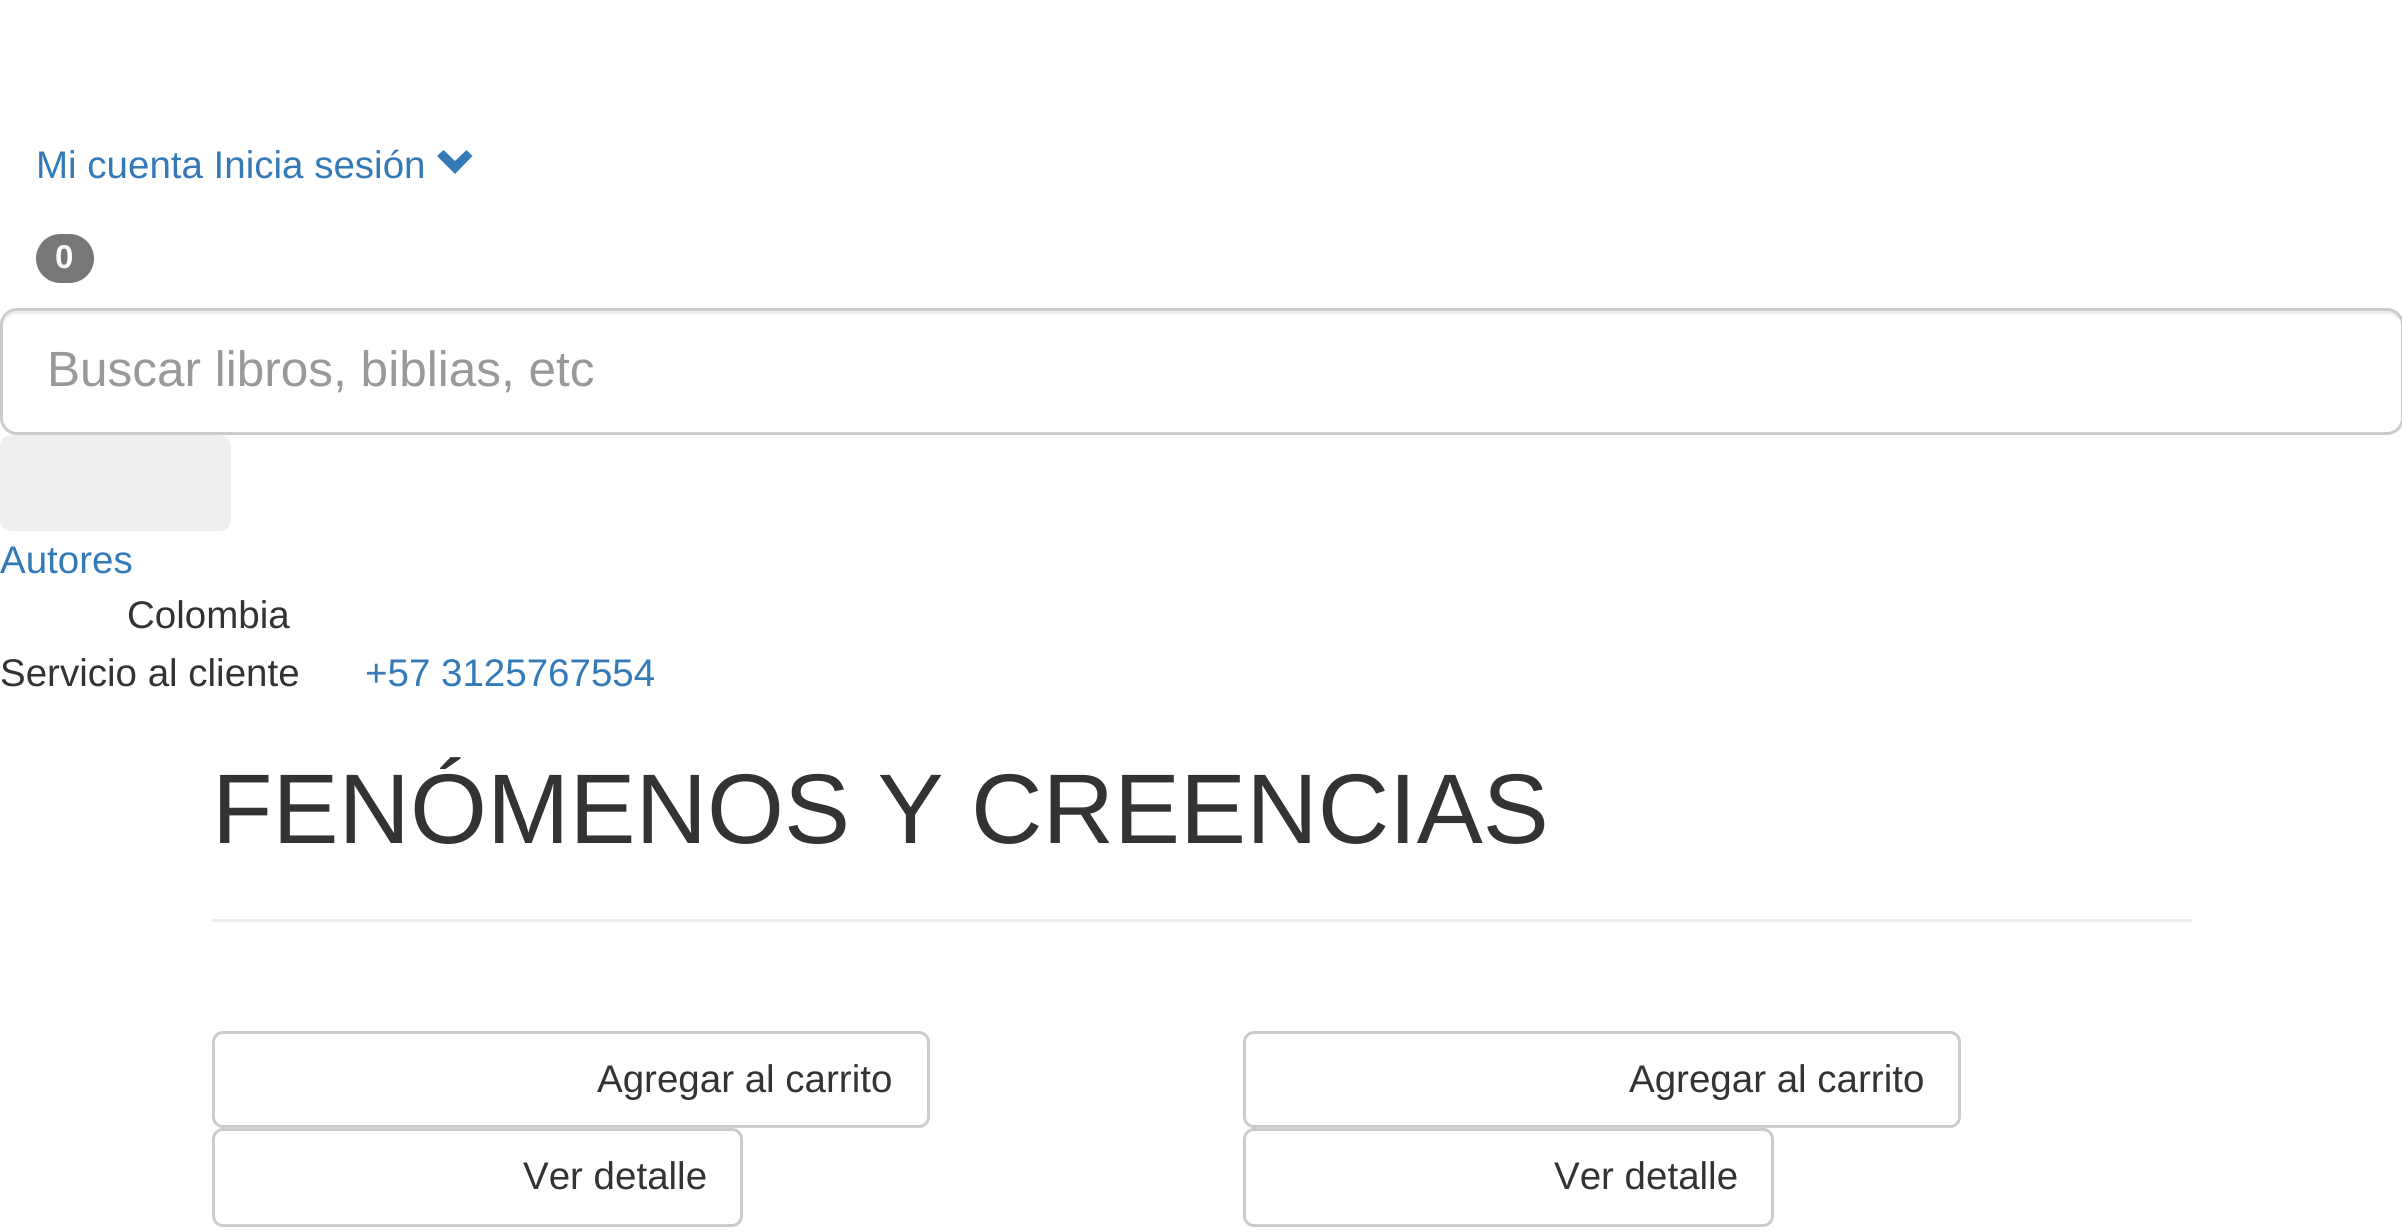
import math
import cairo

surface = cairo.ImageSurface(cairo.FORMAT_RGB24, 2402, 1232)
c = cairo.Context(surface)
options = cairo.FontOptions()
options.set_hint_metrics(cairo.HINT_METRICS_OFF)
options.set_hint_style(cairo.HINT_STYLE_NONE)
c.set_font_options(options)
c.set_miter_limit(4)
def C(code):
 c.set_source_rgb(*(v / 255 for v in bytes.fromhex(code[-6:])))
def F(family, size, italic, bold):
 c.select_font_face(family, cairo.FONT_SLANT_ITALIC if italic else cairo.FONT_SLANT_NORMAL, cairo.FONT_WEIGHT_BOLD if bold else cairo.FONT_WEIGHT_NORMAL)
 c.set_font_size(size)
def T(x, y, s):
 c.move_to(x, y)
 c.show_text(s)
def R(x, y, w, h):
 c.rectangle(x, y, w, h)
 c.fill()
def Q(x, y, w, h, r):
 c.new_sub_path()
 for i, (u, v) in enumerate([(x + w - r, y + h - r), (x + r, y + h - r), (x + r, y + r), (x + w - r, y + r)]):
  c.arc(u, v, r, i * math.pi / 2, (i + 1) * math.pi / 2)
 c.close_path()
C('ffffff')
c.paint()
F('Liberation Sans',38.5,0,0)
C('337ab7')
T(36,178,'Mi cuenta Inicia sesión')
c.new_path()
c.move_to(472.5,156)
c.line_to(455,174)
c.line_to(437,156)
c.line_to(443.5,150)
c.line_to(455,161)
c.line_to(466.5,150)
c.close_path()
c.fill()
C('777777')
Q(36,234,58,49,24.5)
c.fill()
F('Liberation Sans',33,0,1)
C('ffffff')
T(55,268,'0')
C('ececec')
c.new_path()
c.move_to(16,314)
c.line_to(2387,314)
c.curve_to(2395,314,2401,320,2401,327)
c.curve_to(2401,319,2396,311,2387,311)
c.line_to(17,311)
c.curve_to(8,311,3,319,3,327)
c.curve_to(3,320,9,314,16,314)
c.close_path()
c.fill()
Q(1.5,309.5,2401,124,15.5)
C('cccccc')
c.set_line_width(3)
c.stroke()
F('Liberation Sans',49.5,0,0)
C('999999')
T(47,386,'Buscar libros, biblias, etc')
C('efefef')
Q(0,435,231,96,11)
c.fill()
F('Liberation Sans',38.5,0,0)
C('337ab7')
T(0,573,'Autores')
C('333333')
T(127,628,'Colombia')
T(0,686,'Servicio al cliente')
C('337ab7')
T(365,686,'+57 3125767554')
F('Liberation Sans',99,0,0)
C('333333')
T(212,843,'FENÓMENOS Y CREENCIAS')
C('eeeeee')
R(212,919,1980,3)
Q(213.5,1032.5,715,94,9.5)
C('cccccc')
c.stroke()
F('Liberation Sans',38.5,0,0)
C('333333')
T(597,1092,'Agregar al carrito')
Q(213.5,1129.5,528,96,9.5)
C('cccccc')
c.stroke()
C('333333')
T(523,1189,'Ver detalle')
Q(1244.5,1032.5,715,94,9.5)
C('cccccc')
c.stroke()
C('333333')
T(1629,1092,'Agregar al carrito')
Q(1244.5,1129.5,528,96,9.5)
C('cccccc')
c.stroke()
C('333333')
T(1554,1189,'Ver detalle')
surface.write_to_png('o.png')
